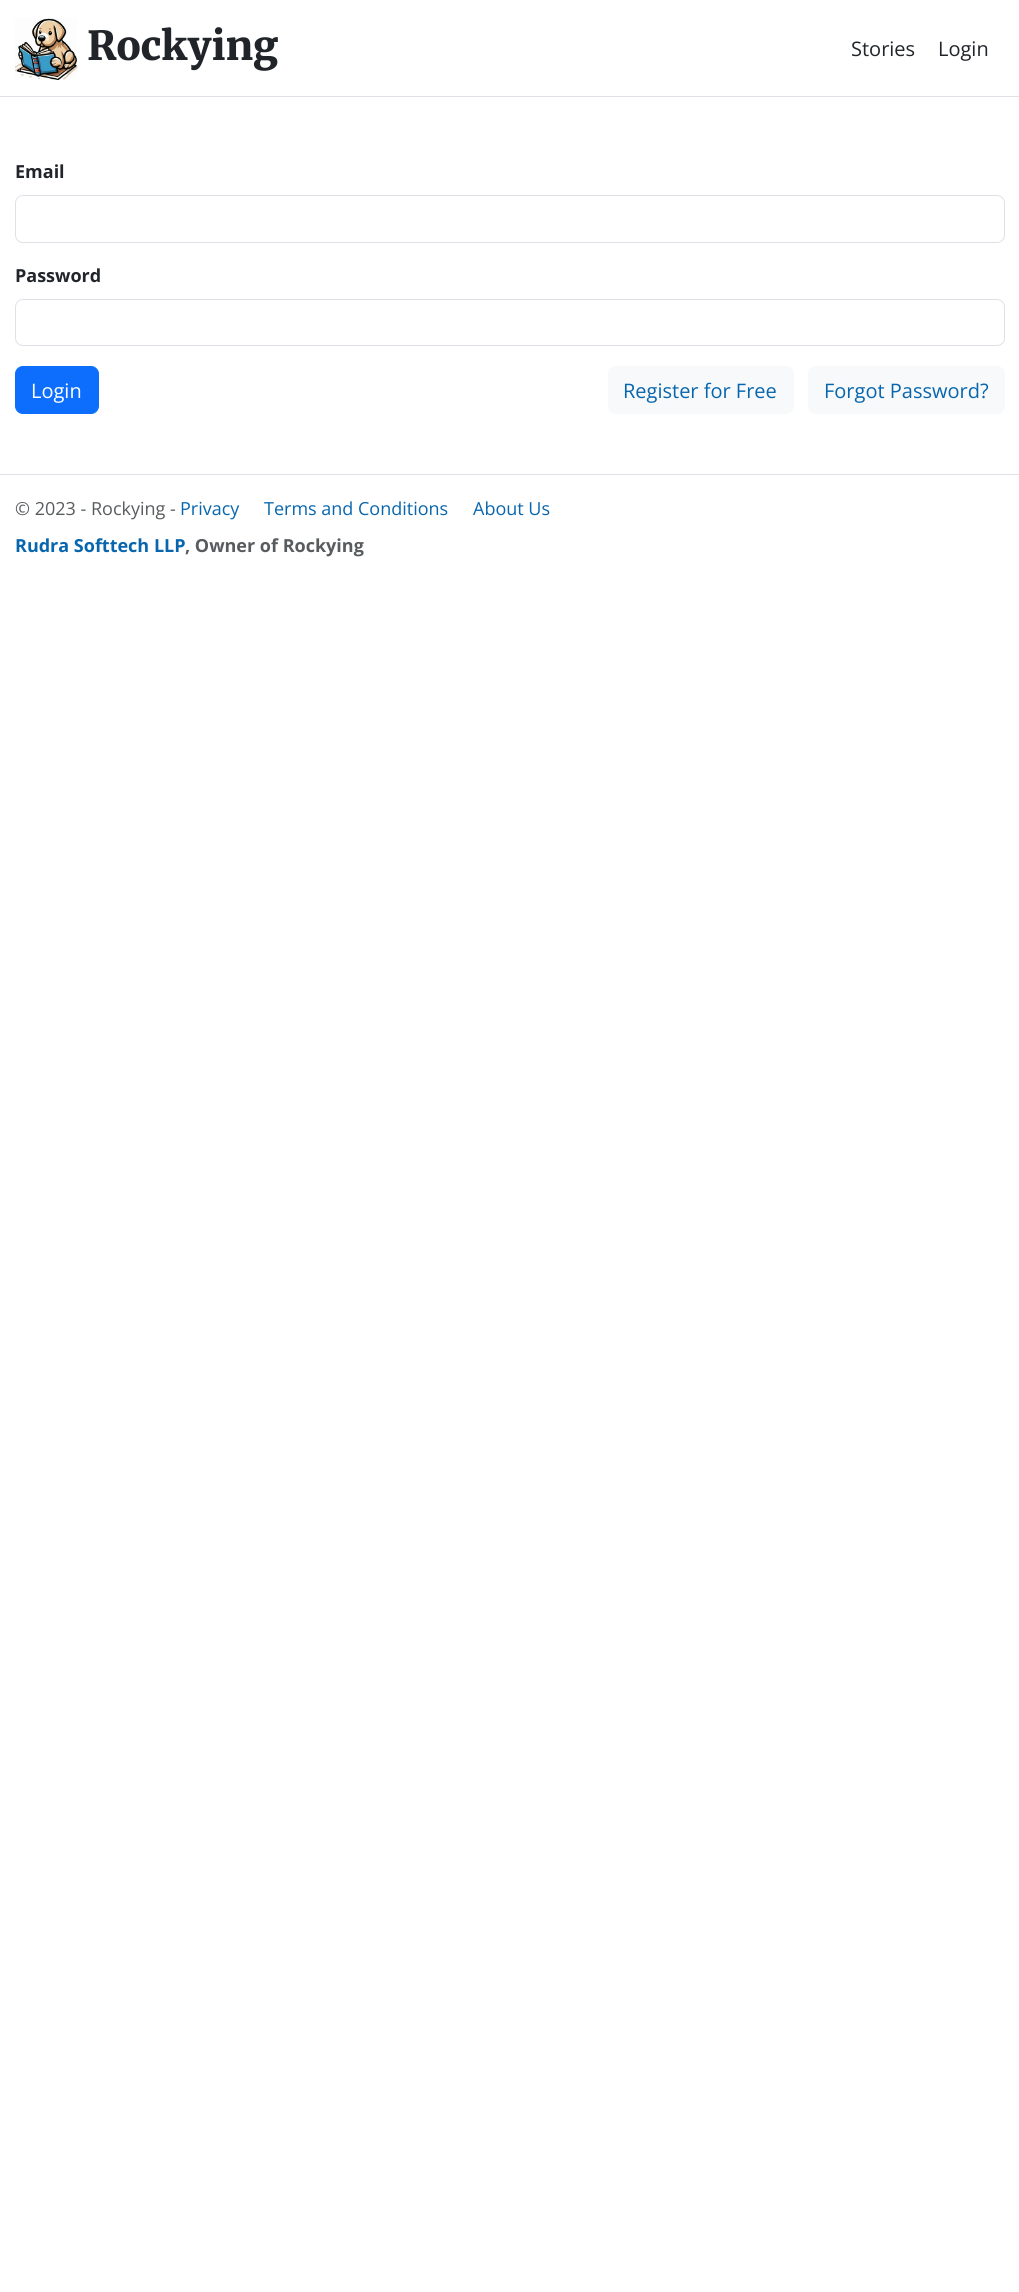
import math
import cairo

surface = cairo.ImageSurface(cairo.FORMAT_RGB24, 1019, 2292)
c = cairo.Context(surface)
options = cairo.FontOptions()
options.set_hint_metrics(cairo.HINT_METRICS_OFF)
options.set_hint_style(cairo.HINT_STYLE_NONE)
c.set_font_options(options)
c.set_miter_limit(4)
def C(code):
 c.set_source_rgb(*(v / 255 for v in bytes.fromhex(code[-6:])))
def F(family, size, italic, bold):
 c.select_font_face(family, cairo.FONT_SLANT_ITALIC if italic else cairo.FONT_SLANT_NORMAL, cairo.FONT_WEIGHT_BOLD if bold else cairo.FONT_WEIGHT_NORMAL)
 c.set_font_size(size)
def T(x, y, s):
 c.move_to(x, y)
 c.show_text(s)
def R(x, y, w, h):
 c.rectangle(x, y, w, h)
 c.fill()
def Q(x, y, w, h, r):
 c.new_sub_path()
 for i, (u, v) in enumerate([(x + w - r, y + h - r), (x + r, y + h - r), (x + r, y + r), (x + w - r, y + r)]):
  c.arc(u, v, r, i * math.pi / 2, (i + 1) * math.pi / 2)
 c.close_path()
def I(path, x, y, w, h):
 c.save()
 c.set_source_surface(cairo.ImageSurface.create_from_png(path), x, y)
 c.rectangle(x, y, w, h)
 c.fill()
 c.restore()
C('ffffff')
c.paint()
C('dee2e6')
R(0,96,1019,1)
I('1.png',15,18,63,62)
F('Merriweather Black',40,0,0)
C('212529')
T(87,60,'Rockying')
F('Open Sans',20,0,0)
T(851,56,'Stories')
T(938,56,'Login')
F('Open Sans',18,0,1)
T(15,178,'Email')
Q(15.5,195.5,989,47,7.5)
C('dee2e6')
c.set_line_width(1)
c.stroke()
C('212529')
T(15,282,'Password')
Q(15.5,299.5,989,46,7.5)
C('dee2e6')
c.stroke()
C('0d6efd')
Q(15.5,366.5,83,47,7.5)
c.fill_preserve()
c.stroke()
F('Open Sans',20,0,0)
C('ffffff')
T(31,398,'Login')
C('f8f9fa')
Q(608,366,186,48,8)
c.fill()
C('0766ad')
T(623,398,'Register for Free')
C('f8f9fa')
Q(808,366,197,48,8)
c.fill()
C('0766ad')
T(824,398,'Forgot Password?')
C('dee2e6')
R(0,474,1019,1)
F('Open Sans',18,0,0)
C('595c5f')
T(15,515,'© 2023 - Rockying -')
C('0766ad')
T(180,515,'Privacy')
T(264,515,'Terms and Conditions')
T(473,515,'About Us')
F('Open Sans',18,0,1)
T(15,552,'Rudra Softtech LLP')
C('595c5f')
T(185,552,', Owner of Rockying')
surface.write_to_png('o.png')
